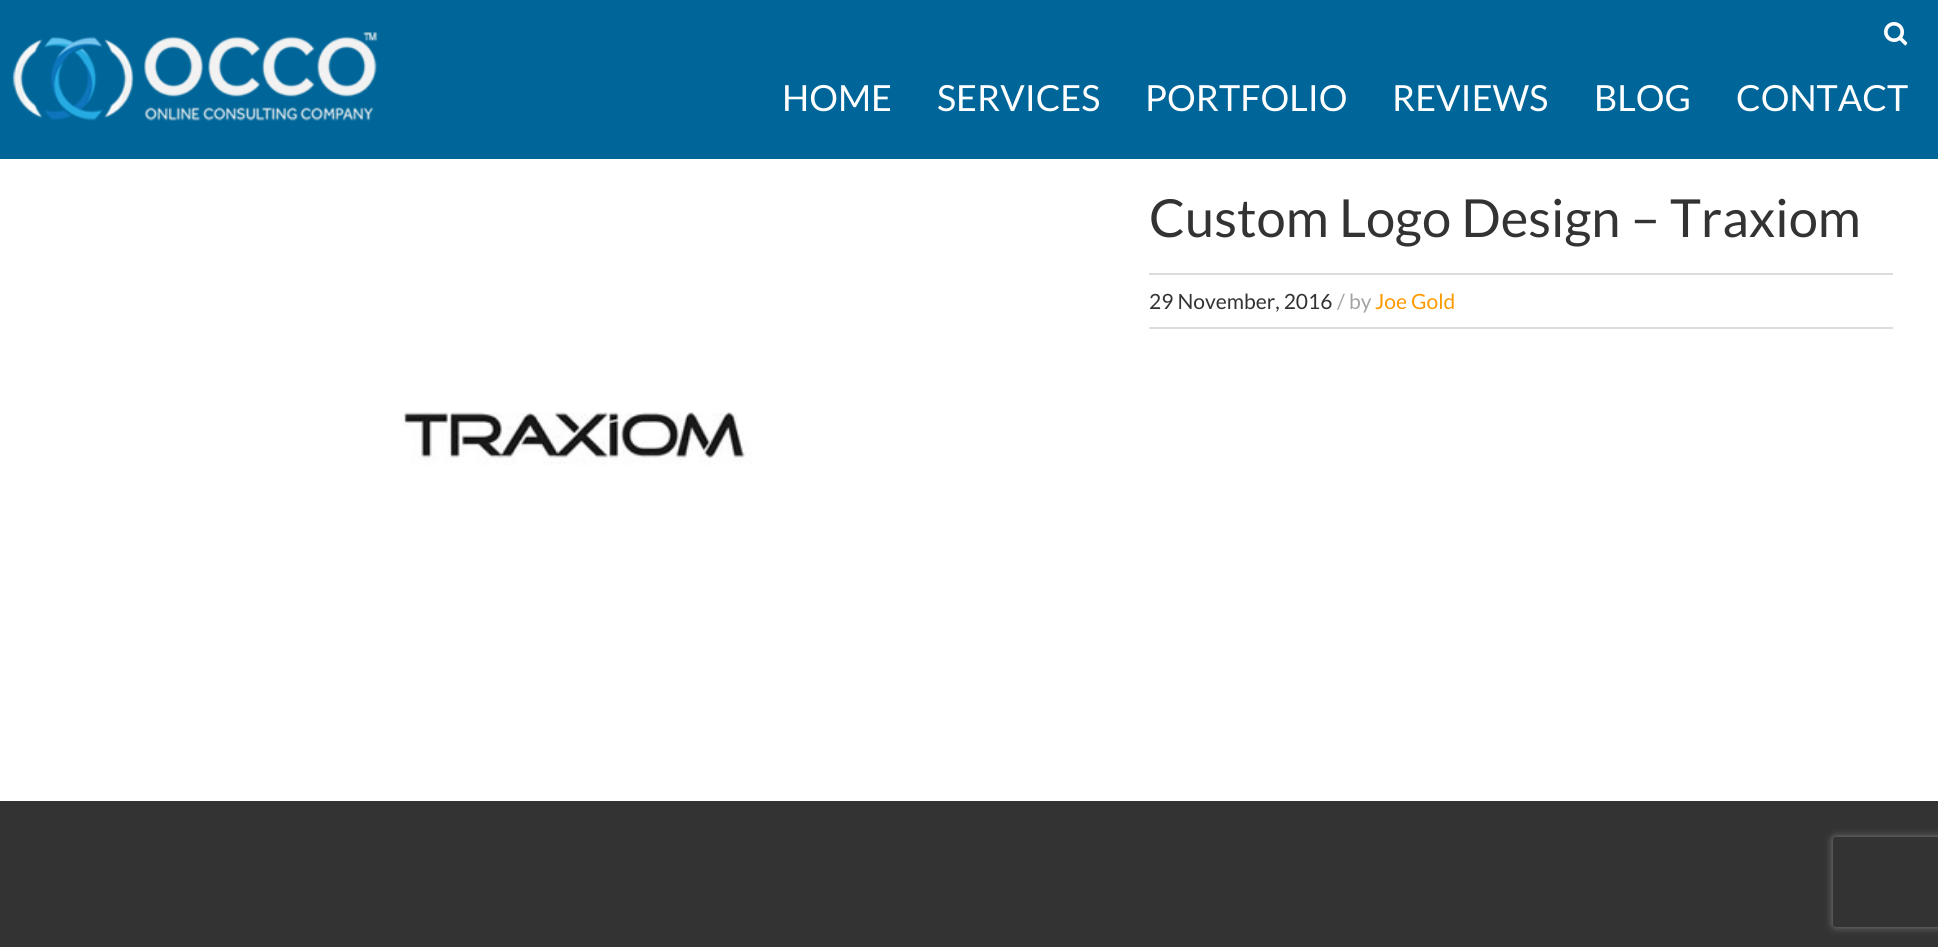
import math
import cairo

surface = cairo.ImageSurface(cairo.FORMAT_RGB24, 1938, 947)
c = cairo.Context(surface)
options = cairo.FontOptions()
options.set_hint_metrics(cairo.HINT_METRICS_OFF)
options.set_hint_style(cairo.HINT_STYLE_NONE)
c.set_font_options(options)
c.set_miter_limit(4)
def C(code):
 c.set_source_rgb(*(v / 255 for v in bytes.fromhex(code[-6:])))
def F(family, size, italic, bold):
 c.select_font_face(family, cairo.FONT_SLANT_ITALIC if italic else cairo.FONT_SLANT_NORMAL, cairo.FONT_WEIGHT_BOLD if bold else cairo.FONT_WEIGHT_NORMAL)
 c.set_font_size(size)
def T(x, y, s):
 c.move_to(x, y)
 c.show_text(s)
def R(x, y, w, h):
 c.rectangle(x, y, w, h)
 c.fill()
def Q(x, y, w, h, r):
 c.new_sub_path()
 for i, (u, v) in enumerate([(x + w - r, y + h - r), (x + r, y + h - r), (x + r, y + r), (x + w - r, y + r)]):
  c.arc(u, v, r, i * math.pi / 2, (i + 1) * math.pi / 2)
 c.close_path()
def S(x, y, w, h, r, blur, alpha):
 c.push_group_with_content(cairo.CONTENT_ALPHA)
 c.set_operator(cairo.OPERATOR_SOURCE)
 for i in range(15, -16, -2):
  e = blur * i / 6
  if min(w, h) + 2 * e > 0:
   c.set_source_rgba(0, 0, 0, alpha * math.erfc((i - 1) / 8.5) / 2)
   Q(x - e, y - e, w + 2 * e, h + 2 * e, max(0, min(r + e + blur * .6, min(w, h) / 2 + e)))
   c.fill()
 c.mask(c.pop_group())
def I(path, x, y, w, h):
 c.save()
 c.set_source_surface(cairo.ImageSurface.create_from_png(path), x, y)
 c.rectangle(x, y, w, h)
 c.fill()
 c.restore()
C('ffffff')
c.paint()
C('006699')
R(0,0,1938,159)
I('1.png',12,32,366,89)
I('2.png',1884,22,24,24)
F('Lato',36,0,0)
C('ffffff')
T(782,111,'HOME')
T(937,111,'SERVICES')
T(1145,111,'PORTFOLIO')
T(1392,111,'REVIEWS')
T(1594,111,'BLOG')
T(1736,111,'CONTACT')
F('Lato',52.5,0,0)
C('333333')
T(1149,237,'Custom Logo Design – Traxiom')
C('dddcdc')
R(1149,273,744,2)
R(1149,327,744,2)
F('Lato',21,0,0)
C('333333')
T(1149,309,'29 November, 2016')
C('a4a4a4')
T(1337,309,'/ by')
C('fd9a00')
T(1375,309,'Joe Gold')
I('3.png',402,412,350,53)
C('333333')
R(0,801,1938,146)
c.save()
c.set_fill_rule(cairo.FILL_RULE_EVEN_ODD)
c.new_path()
c.move_to(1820,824)
c.line_to(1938,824)
c.line_to(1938,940)
c.line_to(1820,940)
c.close_path()
c.move_to(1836,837)
c.line_to(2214,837)
c.curve_to(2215.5,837,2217,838.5,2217,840)
c.line_to(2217,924)
c.curve_to(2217,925.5,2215.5,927,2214,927)
c.line_to(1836,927)
c.curve_to(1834.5,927,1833,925.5,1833,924)
c.line_to(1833,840)
c.curve_to(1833,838.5,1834.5,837,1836,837)
c.close_path()
c.clip()
C('808080')
S(1833,837,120,90,3,4,1)
c.restore()
surface.write_to_png('o.png')
